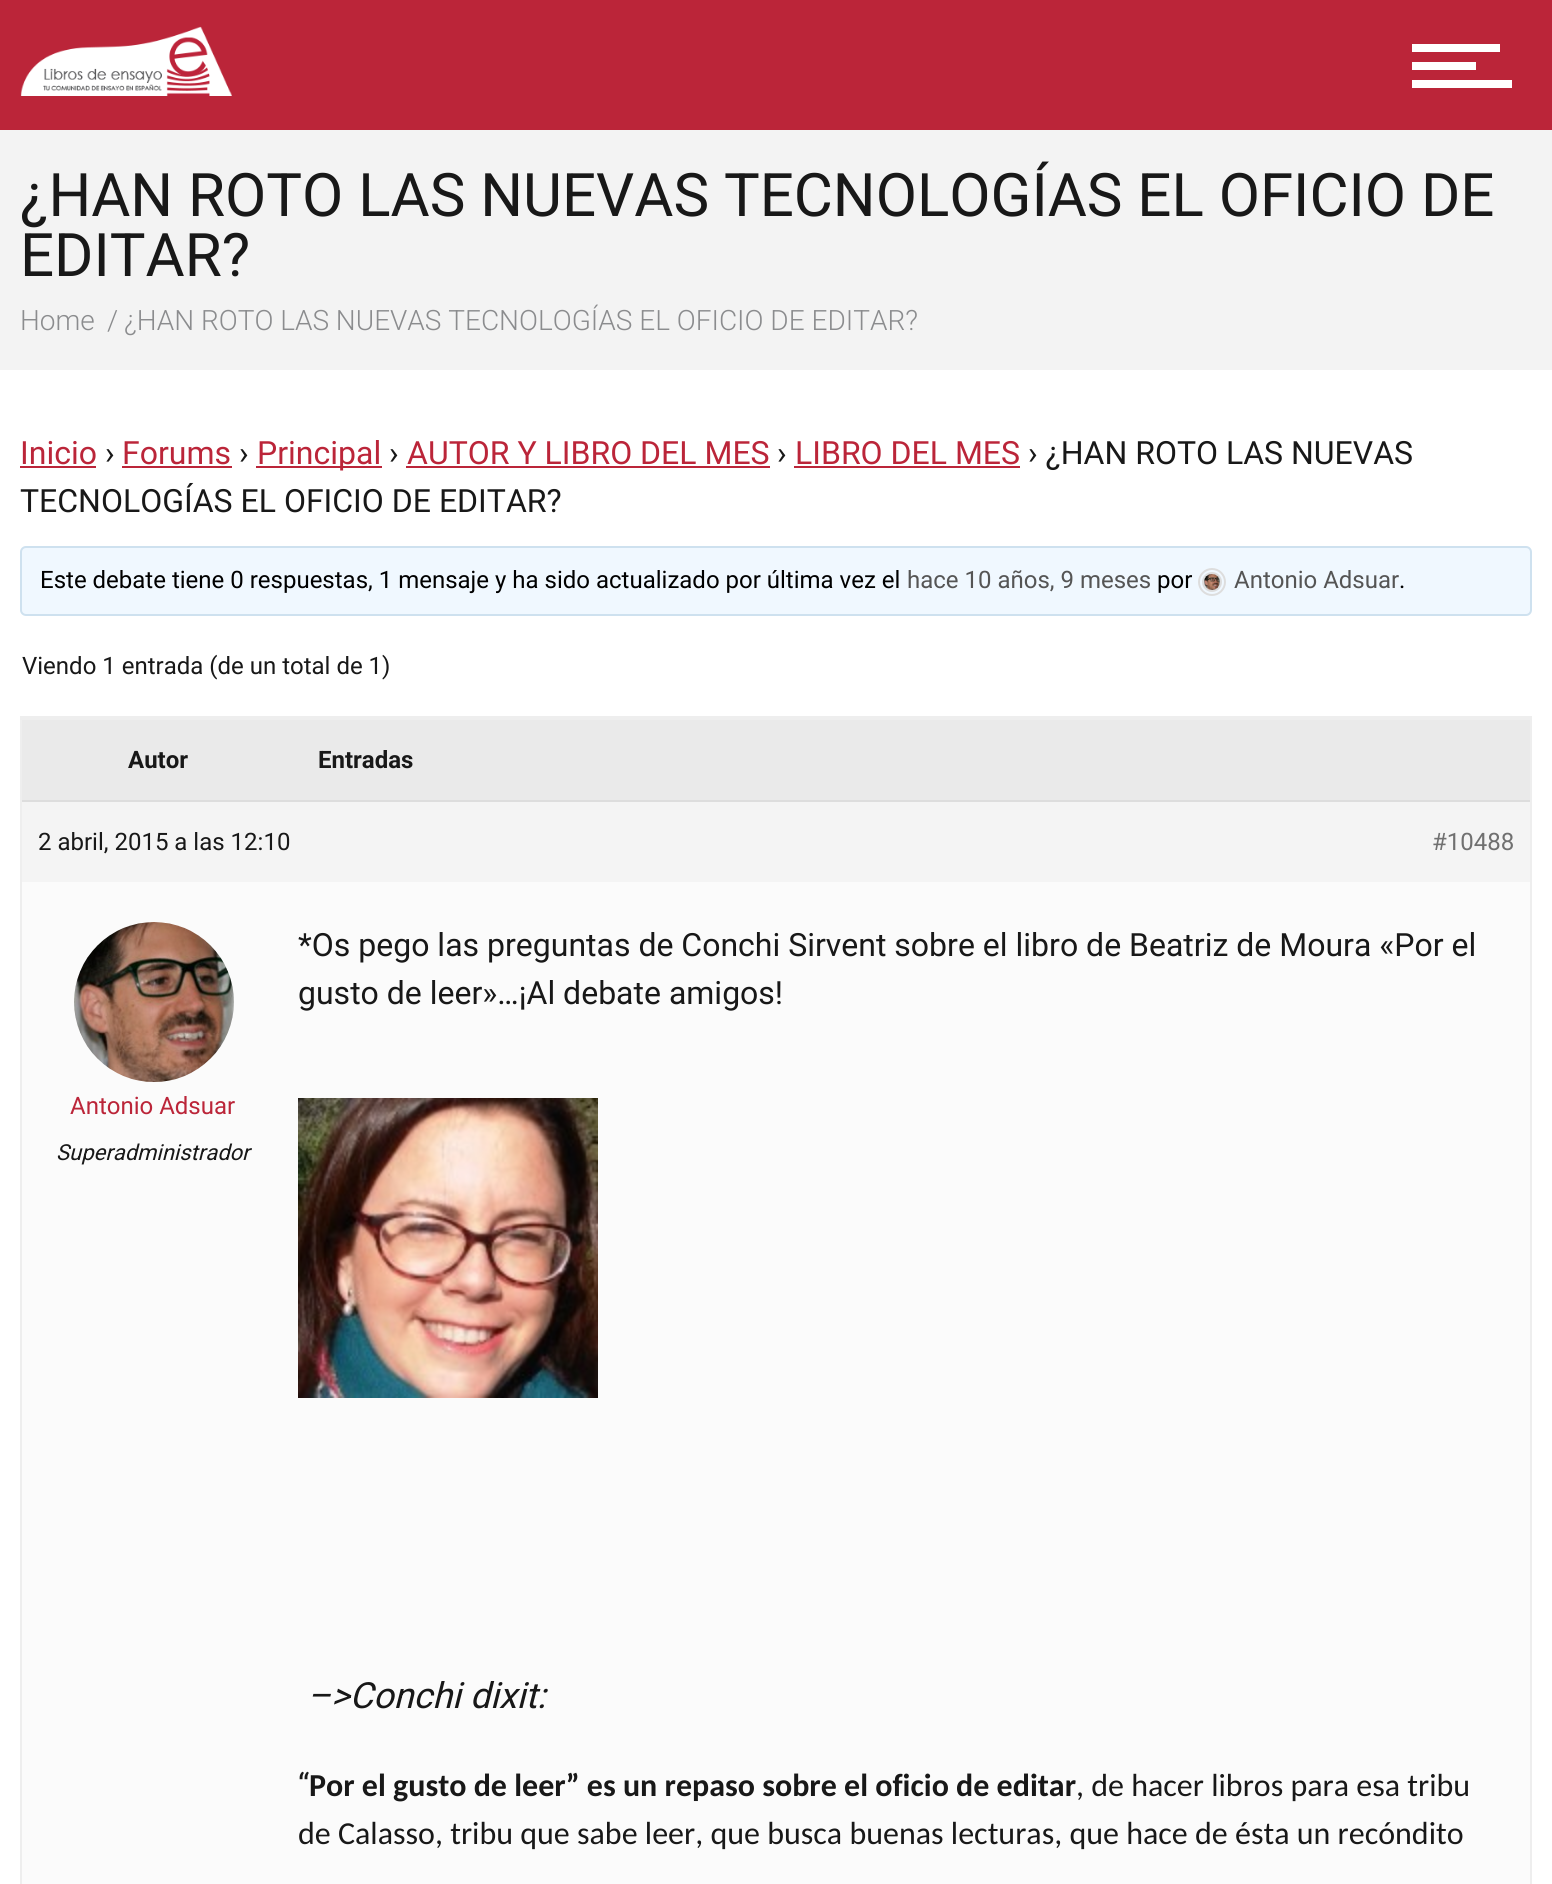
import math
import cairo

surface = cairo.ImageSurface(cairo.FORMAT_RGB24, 1552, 1884)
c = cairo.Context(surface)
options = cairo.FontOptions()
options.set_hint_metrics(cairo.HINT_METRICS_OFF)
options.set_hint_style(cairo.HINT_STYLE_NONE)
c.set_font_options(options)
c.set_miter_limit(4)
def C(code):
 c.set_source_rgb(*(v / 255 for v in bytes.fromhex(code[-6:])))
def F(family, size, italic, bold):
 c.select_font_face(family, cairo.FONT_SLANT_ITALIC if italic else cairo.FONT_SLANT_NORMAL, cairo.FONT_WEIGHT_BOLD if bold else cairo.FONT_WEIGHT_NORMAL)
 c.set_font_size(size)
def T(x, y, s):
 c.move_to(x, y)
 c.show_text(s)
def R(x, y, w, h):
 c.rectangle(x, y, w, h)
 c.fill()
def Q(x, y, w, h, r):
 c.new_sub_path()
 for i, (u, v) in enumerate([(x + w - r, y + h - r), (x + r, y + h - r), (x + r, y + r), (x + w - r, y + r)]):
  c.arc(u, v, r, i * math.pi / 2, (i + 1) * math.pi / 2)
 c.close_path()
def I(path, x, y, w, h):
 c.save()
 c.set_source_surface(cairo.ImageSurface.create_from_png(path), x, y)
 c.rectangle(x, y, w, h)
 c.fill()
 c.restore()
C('ffffff')
c.paint()
C('bb2539')
R(0,0,1552,130)
I('1.png',20,26,212,70)
C('ffffff')
R(1412,80,100,8)
R(1412,62,64,8)
R(1412,44,88,8)
C('f3f3f3')
R(0,130,1552,240)
F('Roboto',60,0,0)
C('181818')
T(20,216,'¿HAN ROTO LAS NUEVAS TECNOLOGÍAS EL OFICIO DE')
T(20,276,'EDITAR?')
F('Roboto Light',28,0,0)
C('8b8c8e')
T(20,330,'Home')
T(107,330,'/')
T(124,330,'¿HAN ROTO LAS NUEVAS TECNOLOGÍAS EL OFICIO DE EDITAR?')
F('Roboto',32,0,0)
C('bb2539')
T(20,464,'Inicio')
R(20,466,76,2)
C('181818')
T(105,464,'›')
C('bb2539')
T(122,464,'Forums')
R(122,466,110,2)
C('181818')
T(239,464,'›')
C('bb2539')
R(256,466,126,2)
T(257,464,'Principal')
C('181818')
T(389,464,'›')
C('bb2539')
T(407,464,'AUTOR Y LIBRO DEL MES')
R(406,466,364,2)
C('181818')
T(777,464,'›')
C('bb2539')
T(795,464,'LIBRO DEL MES')
R(794,466,226,2)
C('181818')
T(1028,464,'› ¿HAN ROTO LAS NUEVAS')
T(20,512,'TECNOLOGÍAS EL OFICIO DE EDITAR?')
C('f0f8ff')
Q(21,547,1510,68,5)
c.fill_preserve()
C('cee1ef')
c.stroke()
F('Roboto',24,0,0)
C('000000')
T(40,588,'Este debate tiene 0 respuestas, 1 mensaje y ha sido actualizado por última vez el')
C('555555')
T(907,588,'hace 10 años, 9 meses')
C('000000')
T(1157,588,'por')
c.new_path()
c.arc(1212,582,13,0,2 * math.pi)
C('dddddd')
c.stroke()
c.arc(1212,582,9,0,2 * math.pi)
c.stroke()
I('2.png',1204,574,16,16)
C('555555')
T(1234,588,'Antonio Adsuar')
C('000000')
T(1399,588,'.')
C('181818')
T(22,674,'Viendo 1 entrada (de un total de 1)')
c.rectangle(21,717,1510,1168)
C('eeeeee')
c.stroke()
C('eaeaea')
R(22,720,1508,80)
C('eeeeee')
R(22,718,1508,2)
F('Roboto',24,0,1)
C('181818')
T(128,768,'Autor')
T(318,768,'Entradas')
C('f4f4f4')
R(22,802,1508,80)
C('dddddd')
R(22,800,1508,2)
F('Roboto',24,0,0)
C('181818')
T(38,850,'2 abril, 2015 a las 12:10')
C('707070')
T(1432,850,'#10488')
C('fbfbfb')
R(22,882,1508,1002)
I('3.png',74,922,160,160)
C('bb2539')
T(70,1114,'Antonio Adsuar')
F('Roboto',22,1,0)
C('181818')
T(56,1160,'Superadministrador')
F('Roboto',32,0,0)
T(298,956,'*Os pego las preguntas de Conchi Sirvent sobre el libro de Beatriz de Moura «Por el')
T(298,1004,'gusto de leer»…¡Al debate amigos!')
I('4.png',298,1098,300,300)
F('Roboto',36,1,0)
T(307,1708,'–>Conchi dixit:')
F('Roboto',32,0,0)
T(298,1796,'“')
F('Carlito',32,0,1)
T(309,1796,'Por el gusto de leer” es un repaso sobre el oficio de editar')
F('Carlito',32,0,0)
T(1076,1796,', de hacer libros para esa tribu')
T(298,1844,'de Calasso, tribu que sabe leer, que busca buenas lecturas, que hace de ésta un recóndito')
surface.write_to_png('o.png')
